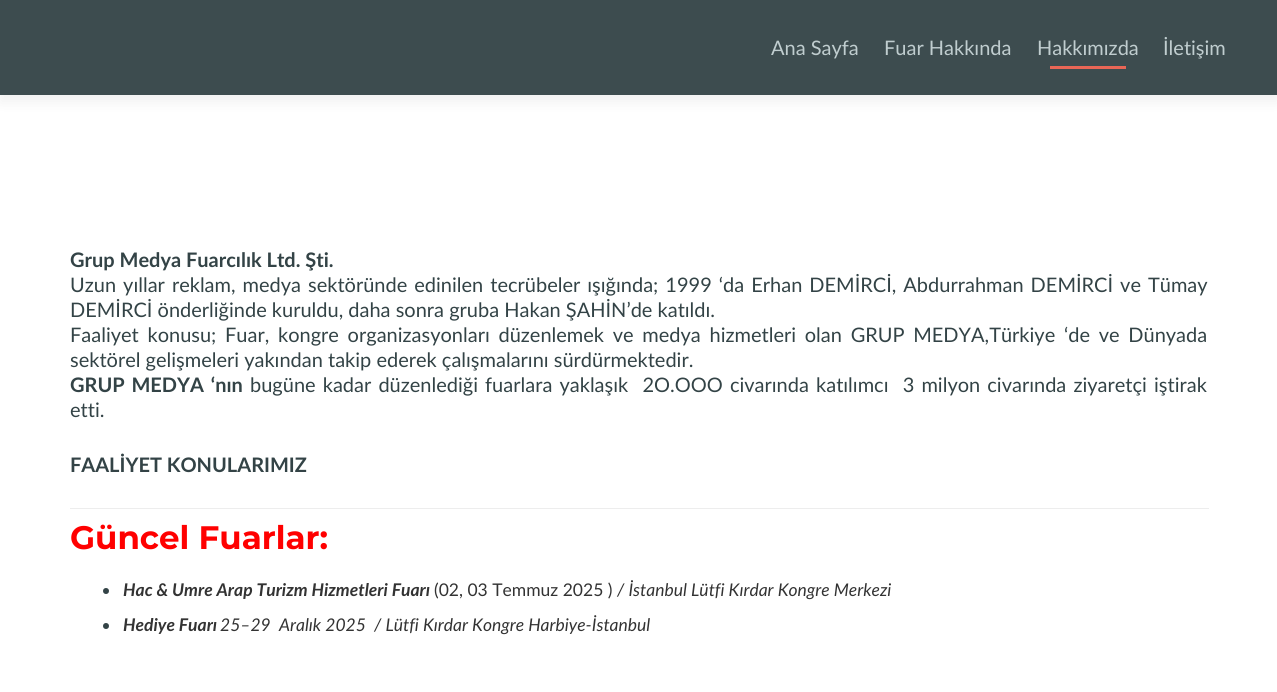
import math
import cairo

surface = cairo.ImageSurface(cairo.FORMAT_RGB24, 1277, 692)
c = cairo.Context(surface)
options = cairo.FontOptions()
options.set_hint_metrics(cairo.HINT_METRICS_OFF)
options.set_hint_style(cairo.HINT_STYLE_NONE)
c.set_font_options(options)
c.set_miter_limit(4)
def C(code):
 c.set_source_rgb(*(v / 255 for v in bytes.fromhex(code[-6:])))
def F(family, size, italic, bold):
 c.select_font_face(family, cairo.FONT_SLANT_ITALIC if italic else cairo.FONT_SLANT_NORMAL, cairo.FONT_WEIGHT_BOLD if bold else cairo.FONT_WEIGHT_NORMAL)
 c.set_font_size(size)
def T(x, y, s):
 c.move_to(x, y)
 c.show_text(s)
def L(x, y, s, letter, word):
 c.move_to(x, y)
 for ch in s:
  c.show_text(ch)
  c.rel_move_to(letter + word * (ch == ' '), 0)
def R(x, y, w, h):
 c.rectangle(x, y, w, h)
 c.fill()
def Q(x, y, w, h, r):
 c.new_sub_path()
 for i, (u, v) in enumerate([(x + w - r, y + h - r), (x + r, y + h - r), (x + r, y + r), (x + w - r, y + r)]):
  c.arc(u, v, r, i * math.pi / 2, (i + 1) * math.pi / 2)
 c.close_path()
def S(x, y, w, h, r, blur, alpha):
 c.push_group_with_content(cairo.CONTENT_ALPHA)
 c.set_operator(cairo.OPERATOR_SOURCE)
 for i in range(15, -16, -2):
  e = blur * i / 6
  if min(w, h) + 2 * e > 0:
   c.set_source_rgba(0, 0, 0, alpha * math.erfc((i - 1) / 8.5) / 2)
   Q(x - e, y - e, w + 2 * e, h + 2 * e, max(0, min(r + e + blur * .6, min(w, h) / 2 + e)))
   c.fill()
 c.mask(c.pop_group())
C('ffffff')
c.paint()
C('323232')
S(0,6,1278,95,0,7,.08)
C('3d4c4f')
R(0,0,1277,95)
F('Lato',20,0,0)
C('c0cdcf')
T(771,55,'Ana Sayfa')
T(884,55,'Fuar Hakkında')
T(1037,55,'Hakkımızda')
C('e96656')
R(1050,66,76,3)
C('c0cdcf')
T(1163,55,'İletişim')
F('Lato',20,0,1)
C('334346')
T(70,267,'Grup Medya Fuarcılık Ltd. Şti.')
F('Lato',20,0,0)
L(70,292,'Uzun yıllar reklam, medya sektöründe edinilen tecrübeler ışığında; 1999 ‘da Erhan DEMİRCİ, Abdurrahman DEMİRCİ ve Tümay',0,1.9)
T(70,317,'DEMİRCİ önderliğinde kuruldu, daha sonra gruba Hakan ŞAHİN’de katıldı.')
L(70,342,'Faaliyet konusu; Fuar, kongre organizasyonları düzenlemek ve medya hizmetleri olan GRUP MEDYA,Türkiye ‘de ve Dünyada',0,3.6)
T(70,367,'sektörel gelişmeleri yakından takip ederek çalışmalarını sürdürmektedir.')
F('Lato',20,0,1)
L(70,392,'GRUP MEDYA ‘nın',0,2)
F('Lato',20,0,0)
L(250,392,'bugüne kadar düzenlediği fuarlara yaklaşık  2O.OOO civarında katılımcı  3 milyon civarında ziyaretçi iştirak',0,2)
T(70,417,'etti.')
F('Lato',20,0,1)
T(70,472,'FAALİYET KONULARIMIZ')
C('ededed')
R(70,508,1139,1)
F('Montserrat',32.5,0,1)
C('ff0000')
T(70,549,'Güncel Fuarlar:')
C('334346')
c.new_path()
c.arc(106,591,3,0,2 * math.pi)
c.fill()
F('Lato',17.5,1,1)
C('333333')
T(123,596,'Hac & Umre Arap Turizm Hizmetleri Fuarı')
F('Lato',17.5,0,0)
T(434,596,'(02, 03 Temmuz 2025 )')
F('Lato',17.5,1,0)
T(617,596,'/ İstanbul Lütfi Kırdar Kongre Merkezi')
C('334346')
c.new_path()
c.arc(106,626,3,0,2 * math.pi)
c.fill()
F('Lato',17.5,1,1)
C('333333')
T(123,631,'Hediye Fuarı')
F('Lato',17.5,1,0)
T(220,631,'25–29  Aralık 2025  / Lütfi Kırdar Kongre Harbiye-İstanbul')
surface.write_to_png('o.png')
